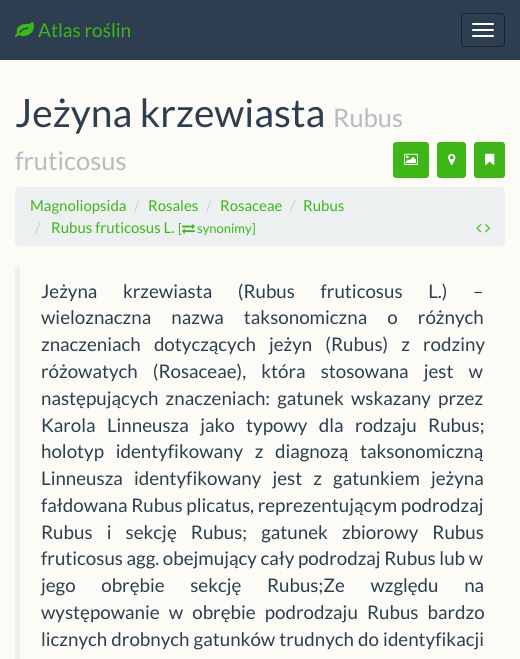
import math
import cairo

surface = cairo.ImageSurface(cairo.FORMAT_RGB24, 520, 659)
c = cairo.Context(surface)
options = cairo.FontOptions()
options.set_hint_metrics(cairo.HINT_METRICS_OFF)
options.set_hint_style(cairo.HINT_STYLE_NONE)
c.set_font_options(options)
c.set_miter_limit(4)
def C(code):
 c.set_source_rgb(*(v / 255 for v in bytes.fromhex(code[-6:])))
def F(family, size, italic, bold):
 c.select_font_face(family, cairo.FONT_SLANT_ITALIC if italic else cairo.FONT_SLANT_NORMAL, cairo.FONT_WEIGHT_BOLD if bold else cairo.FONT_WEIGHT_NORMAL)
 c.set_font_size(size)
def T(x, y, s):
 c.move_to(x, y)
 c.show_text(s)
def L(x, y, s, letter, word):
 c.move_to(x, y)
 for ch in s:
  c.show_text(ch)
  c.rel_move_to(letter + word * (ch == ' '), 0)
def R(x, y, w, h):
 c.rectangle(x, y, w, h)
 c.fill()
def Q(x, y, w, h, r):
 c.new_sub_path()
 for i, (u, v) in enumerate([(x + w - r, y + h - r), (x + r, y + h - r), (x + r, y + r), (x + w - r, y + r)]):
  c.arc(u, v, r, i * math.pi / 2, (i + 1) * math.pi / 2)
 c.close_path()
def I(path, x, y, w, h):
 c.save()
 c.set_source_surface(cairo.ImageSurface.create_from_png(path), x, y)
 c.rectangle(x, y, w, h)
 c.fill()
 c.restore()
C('fcfbf5')
c.paint()
C('2c3e50')
R(0,0,520,60)
I('1.png',15,22,19,15)
F('Lato',19,0,0)
C('3fb618')
T(38,37,'Atlas roślin')
Q(461.5,13.5,43,33,3.5)
C('1a242f')
c.set_line_width(1)
c.stroke()
C('ffffff')
Q(472,23,22,2,1)
c.fill()
Q(472,29,22,2,1)
c.fill()
Q(472,35,22,2,1)
c.fill()
F('Lato',39,0,0)
C('2c3e50')
T(15,127,'Jeżyna krzewiasta')
F('Lato',25.5,0,0)
C('b4bcc2')
T(333,127,'Rubus')
T(15,170,'fruticosus')
C('3fb618')
Q(394,143,34,34,2)
c.fill_preserve()
c.set_line_width(2)
c.stroke()
I('2.png',404,153,14,12)
Q(438,143,27,34,2)
c.fill_preserve()
c.stroke()
I('3.png',448,153,8,12)
Q(475,143,29,34,2)
c.fill_preserve()
c.stroke()
I('4.png',485,153,10,12)
C('ecf0f1')
Q(15,187,490,59,4)
c.fill()
F('Lato',15,0,0)
C('3fb618')
T(30,211,'Magnoliopsida')
C('cccccc')
T(134,211,'/')
C('3fb618')
T(148,211,'Rosales')
C('cccccc')
T(206,211,'/')
C('3fb618')
T(220,211,'Rosaceae')
C('cccccc')
T(290,211,'/')
C('3fb618')
T(303,211,'Rubus')
C('cccccc')
T(35,233,'/')
C('3fb618')
T(51,233,'Rubus fruticosus L.')
F('Lato',13,0,0)
T(178,233,'[')
I('5.png',182,224,13,10)
T(197,233,'synonimy]')
I('6.png',476,224,6,9)
I('7.png',485,224,5,9)
C('ecf0f1')
R(15,267,5,392)
F('Lato',18.75,0,0)
C('2c3e50')
L(41,298,'Jeżyna krzewiasta (Rubus fruticosus L.) –',0,22)
L(41,324,'wieloznaczna nazwa taksonomiczna o różnych',0,16.5)
L(41,351,'znaczeniach dotyczących jeżyn (Rubus) z rodziny',0,9.5)
L(41,378,'różowatych (Rosaceae), która stosowana jest w',0,11.5)
L(41,405,'następujących znaczeniach: gatunek wskazany przez',0,3.5)
L(41,432,'Karola Linneusza jako typowy dla rodzaju Rubus;',0,7.75)
L(41,458,'holotyp identyfikowany z diagnozą taksonomiczną',0,8)
L(41,485,'Linneusza identyfikowany jest z gatunkiem jeżyna',0,7.5)
T(41,512,'fałdowana Rubus plicatus, reprezentującym podrodzaj')
L(41,539,'Rubus i sekcję Rubus; gatunek zbiorowy Rubus',0,10.5)
T(41,565,'fruticosus agg. obejmujący cały podrodzaj Rubus lub w')
L(41,592,'jego obrębie sekcję Rubus;Ze względu na',0,22)
L(41,619,'występowanie w obrębie podrodzaju Rubus bardzo',0,5.5)
L(41,646,'licznych drobnych gatunków trudnych do identyfikacji',0,.5)
surface.write_to_png('o.png')
